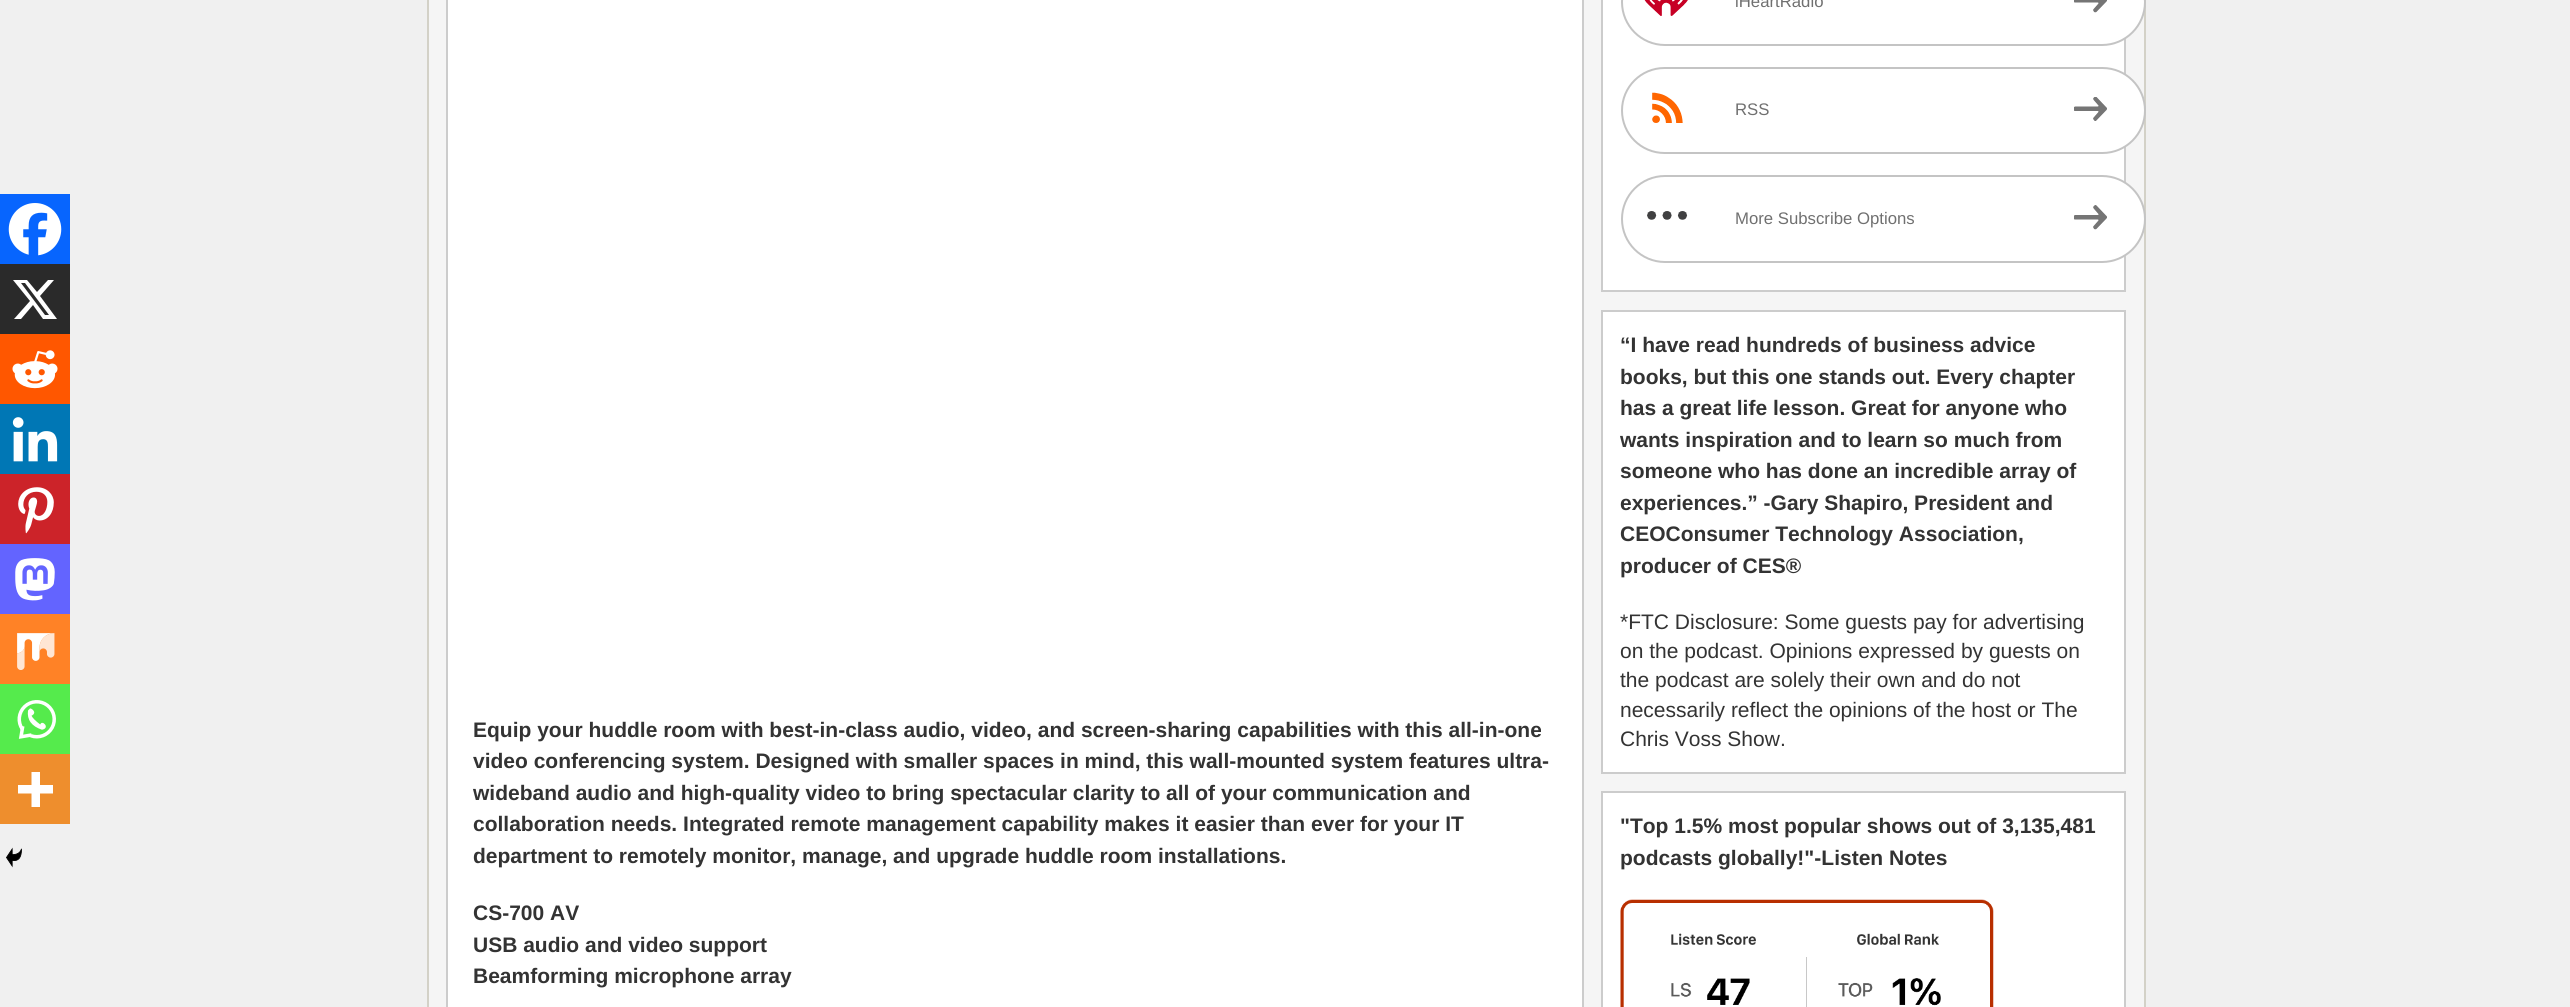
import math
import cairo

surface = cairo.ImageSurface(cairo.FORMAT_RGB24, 2570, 1007)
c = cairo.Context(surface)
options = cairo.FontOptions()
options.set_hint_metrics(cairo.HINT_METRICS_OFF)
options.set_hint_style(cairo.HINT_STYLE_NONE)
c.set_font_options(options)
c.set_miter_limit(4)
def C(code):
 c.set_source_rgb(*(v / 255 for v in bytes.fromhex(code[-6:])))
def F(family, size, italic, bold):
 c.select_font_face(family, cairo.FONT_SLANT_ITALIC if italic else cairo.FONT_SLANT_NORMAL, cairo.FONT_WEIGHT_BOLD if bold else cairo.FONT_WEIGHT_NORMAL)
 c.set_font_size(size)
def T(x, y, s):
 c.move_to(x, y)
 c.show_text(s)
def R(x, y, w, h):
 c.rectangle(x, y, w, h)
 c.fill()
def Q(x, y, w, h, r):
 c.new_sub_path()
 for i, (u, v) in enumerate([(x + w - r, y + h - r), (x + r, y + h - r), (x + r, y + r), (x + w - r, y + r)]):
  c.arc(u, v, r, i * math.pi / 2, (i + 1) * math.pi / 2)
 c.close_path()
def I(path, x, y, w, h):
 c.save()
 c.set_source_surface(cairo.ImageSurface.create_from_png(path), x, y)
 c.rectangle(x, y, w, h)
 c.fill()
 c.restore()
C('f0f0f0')
c.paint()
C('f5f5f5')
c.rectangle(428,-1,1717,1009)
c.fill_preserve()
C('d3d1c7')
c.stroke()
C('ffffff')
c.rectangle(447,-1,1136,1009)
c.fill_preserve()
C('cccccc')
c.stroke()
C('0765fe')
R(0,194,70,70)
I('1.png',8,203,54,53)
C('2a2a2a')
R(0,264,70,70)
C('ffffff')
c.new_path()
c.move_to(48,280)
c.line_to(54,280)
c.line_to(40,296)
c.line_to(57,319)
c.line_to(43,319)
c.line_to(33,305)
c.line_to(21,319)
c.line_to(14,319)
c.line_to(30,301)
c.line_to(13,280)
c.line_to(27,280)
c.line_to(37,292)
c.close_path()
c.move_to(45,315)
c.line_to(49,315)
c.line_to(25,283)
c.line_to(21,283)
c.close_path()
c.fill()
C('ff5700')
R(0,334,70,70)
I('2.png',12,350,46,39)
C('0077b5')
R(0,404,70,70)
I('3.png',12,417,46,45)
C('cc2329')
R(0,474,70,70)
I('4.png',18,487,36,47)
C('6364ff')
R(0,544,70,70)
I('5.png',15,558,40,43)
C('ff8226')
R(0,614,70,70)
I('6.png',17,633,38,37)
C('55eb4c')
R(0,684,70,70)
I('7.png',17,700,39,39)
C('ee8e2d')
R(0,754,70,70)
C('ffffff')
c.set_fill_rule(cairo.FILL_RULE_EVEN_ODD)
c.new_path()
c.move_to(40,785)
c.line_to(40,772)
c.line_to(31.5,772)
c.line_to(31.5,785)
c.line_to(18,785)
c.line_to(18,793.5)
c.line_to(31.5,793.5)
c.line_to(31.5,807)
c.line_to(40,807)
c.line_to(40,793.5)
c.line_to(53,793.5)
c.line_to(53,785)
c.close_path()
c.fill()
I('8.png',6,847,16,21)
F('Liberation Sans',21,0,1)
C('333333')
T(473,737,'Equip your huddle room with best-in-class audio, video, and screen-sharing capabilities with this all-in-one')
T(473,768,'video conferencing system. Designed with smaller spaces in mind, this wall-mounted system features ultra-')
T(473,800,'wideband audio and high-quality video to bring spectacular clarity to all of your communication and')
T(473,831,'collaboration needs. Integrated remote management capability makes it easier than ever for your IT')
T(473,863,'department to remotely monitor, manage, and upgrade huddle room installations.')
T(473,920,'CS-700 AV')
T(473,952,'USB audio and video support')
T(473,983,'Beamforming microphone array')
C('ffffff')
c.rectangle(1602,-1,523,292)
c.fill_preserve()
C('cccccc')
c.stroke()
C('ffffff')
Q(1622,-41,523,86,43)
c.fill_preserve()
C('c4c4c4')
c.stroke()
I('9.png',1644,0,44,16)
F('Liberation Sans',16.75,0,0)
C('707070')
T(1735,7,'iHeartRadio')
I('10.png',2074,0,33,13)
C('ffffff')
Q(1622,68,523,85,42.5)
c.fill_preserve()
C('c4c4c4')
c.stroke()
I('11.png',1652,92,31,31)
C('707070')
T(1735,115,'RSS')
I('12.png',2074,97,33,24)
C('ffffff')
Q(1622,176,523,86,43)
c.fill_preserve()
C('c4c4c4')
c.stroke()
I('13.png',1647,211,41,9)
C('707070')
T(1735,224,'More Subscribe Options')
I('14.png',2074,205,33,25)
C('ffffff')
c.rectangle(1602,311,523,462)
c.fill_preserve()
C('cccccc')
c.stroke()
F('Liberation Sans',21,0,1)
C('333333')
T(1620,352,'“I have read hundreds of business advice')
T(1620,384,'books, but this one stands out. Every chapter')
T(1620,415,'has a great life lesson. Great for anyone who')
T(1620,447,'wants inspiration and to learn so much from')
T(1620,478,'someone who has done an incredible array of')
T(1620,510,'experiences.” -Gary Shapiro, President and')
T(1620,541,'CEOConsumer Technology Association,')
T(1620,573,'producer of CES®')
F('Liberation Sans',21,0,0)
T(1620,629,'*FTC Disclosure: Some guests pay for advertising')
T(1620,658,'on the podcast. Opinions expressed by guests on')
T(1620,687,'the podcast are solely their own and do not')
T(1620,717,'necessarily reflect the opinions of the host or The')
T(1620,746,'Chris Voss Show.')
C('ffffff')
c.rectangle(1602,792,523,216)
c.fill_preserve()
C('cccccc')
c.stroke()
F('Liberation Sans',21,0,1)
C('333333')
T(1620,833,'"Top 1.5% most popular shows out of 3,135,481')
T(1620,865,'podcasts globally!"-Listen Notes')
I('15.png',1620,899,374,108)
surface.write_to_png('o.png')
